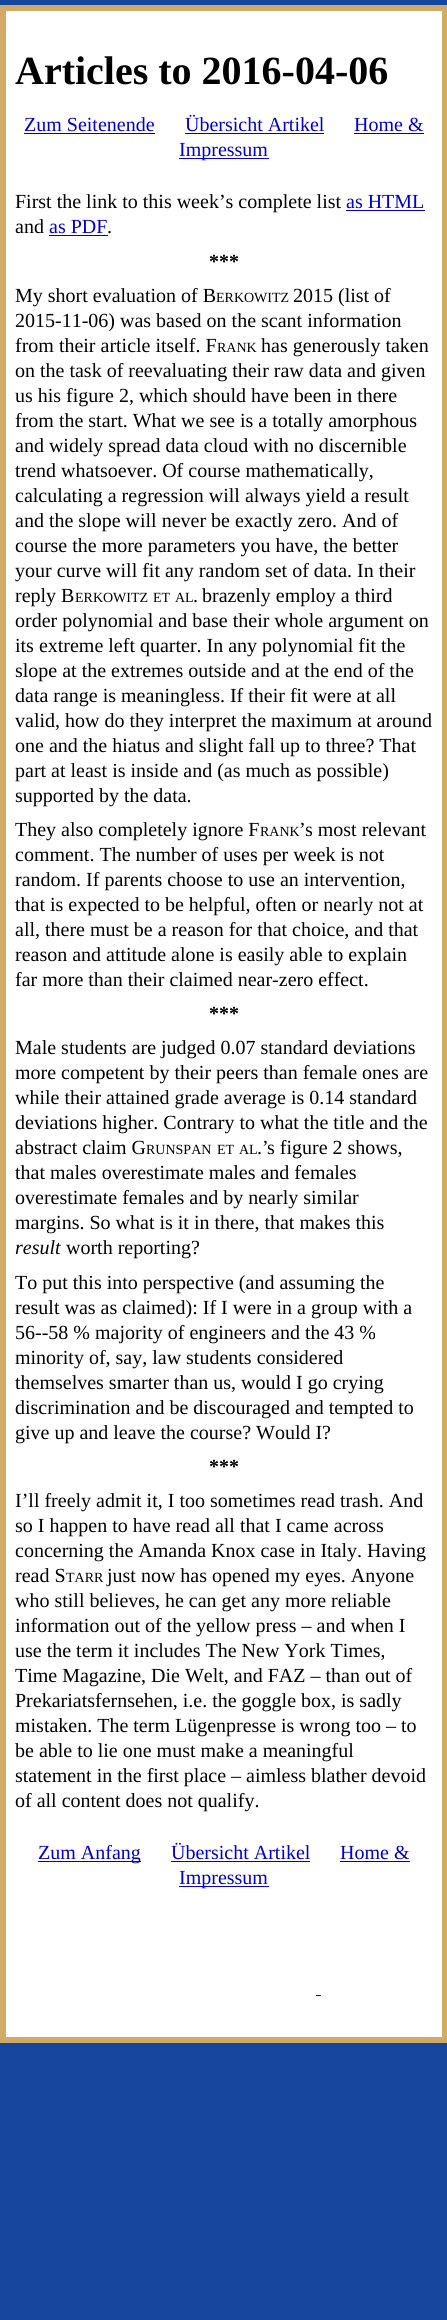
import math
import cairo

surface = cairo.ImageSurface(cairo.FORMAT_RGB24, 447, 2320)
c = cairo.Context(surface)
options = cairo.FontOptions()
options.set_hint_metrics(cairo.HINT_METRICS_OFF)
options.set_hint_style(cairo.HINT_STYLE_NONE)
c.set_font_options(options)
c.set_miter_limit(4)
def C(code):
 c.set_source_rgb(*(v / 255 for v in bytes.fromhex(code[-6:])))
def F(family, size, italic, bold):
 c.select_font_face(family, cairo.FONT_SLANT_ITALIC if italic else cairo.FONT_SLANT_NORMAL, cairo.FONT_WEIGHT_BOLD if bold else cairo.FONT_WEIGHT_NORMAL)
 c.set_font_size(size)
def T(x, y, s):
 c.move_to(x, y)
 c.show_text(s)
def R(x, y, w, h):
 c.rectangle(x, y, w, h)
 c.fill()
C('16469d')
c.paint()
C('ffffff')
c.rectangle(3,8,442,2032)
c.fill_preserve()
C('d1aa66')
c.set_line_width(6)
c.stroke()
F('Liberation Serif',40,0,1)
C('000000')
T(15,84,'Articles to 2016-04-06')
F('Liberation Serif',20,0,0)
C('0000cc')
T(24,131,'Zum Seitenende')
R(24,133,131,1)
T(185,131,'Übersicht Artikel')
R(185,133,139,1)
T(354,131,'Home &')
R(354,133,70,1)
R(179,158,90,1)
T(179,156,'Impressum')
C('000000')
T(15,208,'First the link to this week’s complete list')
C('0000cc')
T(346,208,'as HTML')
R(346,210,79,1)
C('000000')
T(15,233,'and')
C('0000cc')
T(49,233,'as PDF')
R(49,235,59,1)
C('000000')
T(107,233,'.')
F('Liberation Serif',20,0,1)
T(209,268,'***')
F('Liberation Serif',20,0,0)
T(15,302,'My short evaluation of B')
F('Liberation Serif',14,0,0)
T(216,302,'ERKOWITZ')
F('Liberation Serif',20,0,0)
T(293,302,'2015 (list of')
T(15,327,'2015-11-06) was based on the scant information')
T(15,352,'from their article itself. F')
F('Liberation Serif',14,0,0)
T(217,352,'RANK')
F('Liberation Serif',20,0,0)
T(261,352,'has generously taken')
T(15,377,'on the task of reevaluating their raw data and given')
T(15,402,'us his figure 2, which should have been in there')
T(15,427,'from the start. What we see is a totally amorphous')
T(15,452,'and widely spread data cloud with no discernible')
T(15,477,'trend whatsoever. Of course mathematically,')
T(15,502,'calculating a regression will always yield a result')
T(15,527,'and the slope will never be exactly zero. And of')
T(15,552,'course the more parameters you have, the better')
T(15,577,'your curve will fit any random set of data. In their')
T(15,602,'reply B')
F('Liberation Serif',14,0,0)
T(75,602,'ERKOWITZ')
T(153,602,'ET')
T(175,602,'AL')
F('Liberation Serif',20,0,0)
T(193,602,'.')
T(202,602,'brazenly employ a third')
T(15,627,'order polynomial and base their whole argument on')
T(15,652,'its extreme left quarter. In any polynomial fit the')
T(15,677,'slope at the extremes outside and at the end of the')
T(15,702,'data range is meaningless. If their fit were at all')
T(15,727,'valid, how do they interpret the maximum at around')
T(15,752,'one and the hiatus and slight fall up to three? That')
T(15,777,'part at least is inside and (as much as possible)')
T(15,802,'supported by the data.')
T(15,836,'They also completely ignore F')
F('Liberation Serif',14,0,0)
T(260,836,'RANK')
F('Liberation Serif',20,0,0)
T(299,836,'’')
T(305,836,'s most relevant')
T(15,861,'comment. The number of uses per week is not')
T(15,886,'random. If parents choose to use an intervention,')
T(15,911,'that is expected to be helpful, often or nearly not at')
T(15,936,'all, there must be a reason for that choice, and that')
T(15,961,'reason and attitude alone is easily able to explain')
T(15,986,'far more than their claimed near-zero effect.')
F('Liberation Serif',20,0,1)
T(209,1020,'***')
F('Liberation Serif',20,0,0)
T(15,1054,'Male students are judged 0.07 standard deviations')
T(15,1079,'more competent by their peers than female ones are')
T(15,1104,'while their attained grade average is 0.14 standard')
T(15,1129,'deviations higher. Contrary to what the title and the')
T(15,1154,'abstract claim G')
F('Liberation Serif',14,0,0)
T(146,1154,'RUNSPAN')
T(217,1154,'ET')
T(239,1154,'AL')
F('Liberation Serif',20,0,0)
T(257,1154,'.’')
T(267,1154,'s figure 2 shows,')
T(15,1179,'that males overestimate males and females')
T(15,1204,'overestimate females and by nearly similar')
T(15,1229,'margins. So what is it in there, that makes this')
F('Liberation Serif',20,1,0)
T(15,1254,'result')
F('Liberation Serif',20,0,0)
T(66,1254,'worth reporting?')
T(15,1289,'To put this into perspective (and assuming the')
T(15,1314,'result was as claimed): If I were in a group with a')
T(15,1339,'56--58 % majority of engineers and the 43 %')
T(15,1364,'minority of, say, law students considered')
T(15,1389,'themselves smarter than us, would I go crying')
T(15,1414,'discrimination and be discouraged and tempted to')
T(15,1439,'give up and leave the course? Would I?')
F('Liberation Serif',20,0,1)
T(209,1473,'***')
F('Liberation Serif',20,0,0)
T(15,1507,'I’ll freely admit it, I too sometimes read trash. And')
T(15,1532,'so I happen to have read all that I came across')
T(15,1557,'concerning the Amanda Knox case in Italy. Having')
T(15,1582,'read S')
F('Liberation Serif',14,0,0)
T(66,1582,'TARR')
F('Liberation Serif',20,0,0)
T(107,1582,'just now has opened my eyes. Anyone')
T(15,1607,'who still believes, he can get any more reliable')
T(15,1632,'information out of the yellow press – and when I')
T(15,1657,'use the term it includes The New York Times,')
T(15,1682,'Time Magazine, Die Welt, and FAZ – than out of')
T(15,1707,'Prekariatsfernsehen, i.e. the goggle box, is sadly')
T(15,1732,'mistaken. The term Lügenpresse is wrong too – to')
T(15,1757,'be able to lie one must make a meaningful')
T(15,1782,'statement in the first place – aimless blather devoid')
T(15,1807,'of all content does not qualify.')
C('0000cc')
R(38,1861,103,1)
T(38,1859,'Zum Anfang')
T(171,1859,'Übersicht Artikel')
R(171,1861,139,1)
T(340,1859,'Home &')
R(340,1861,70,1)
R(179,1886,90,1)
T(179,1884,'Impressum')
R(316,1995,5,1)
surface.write_to_png('o.png')
